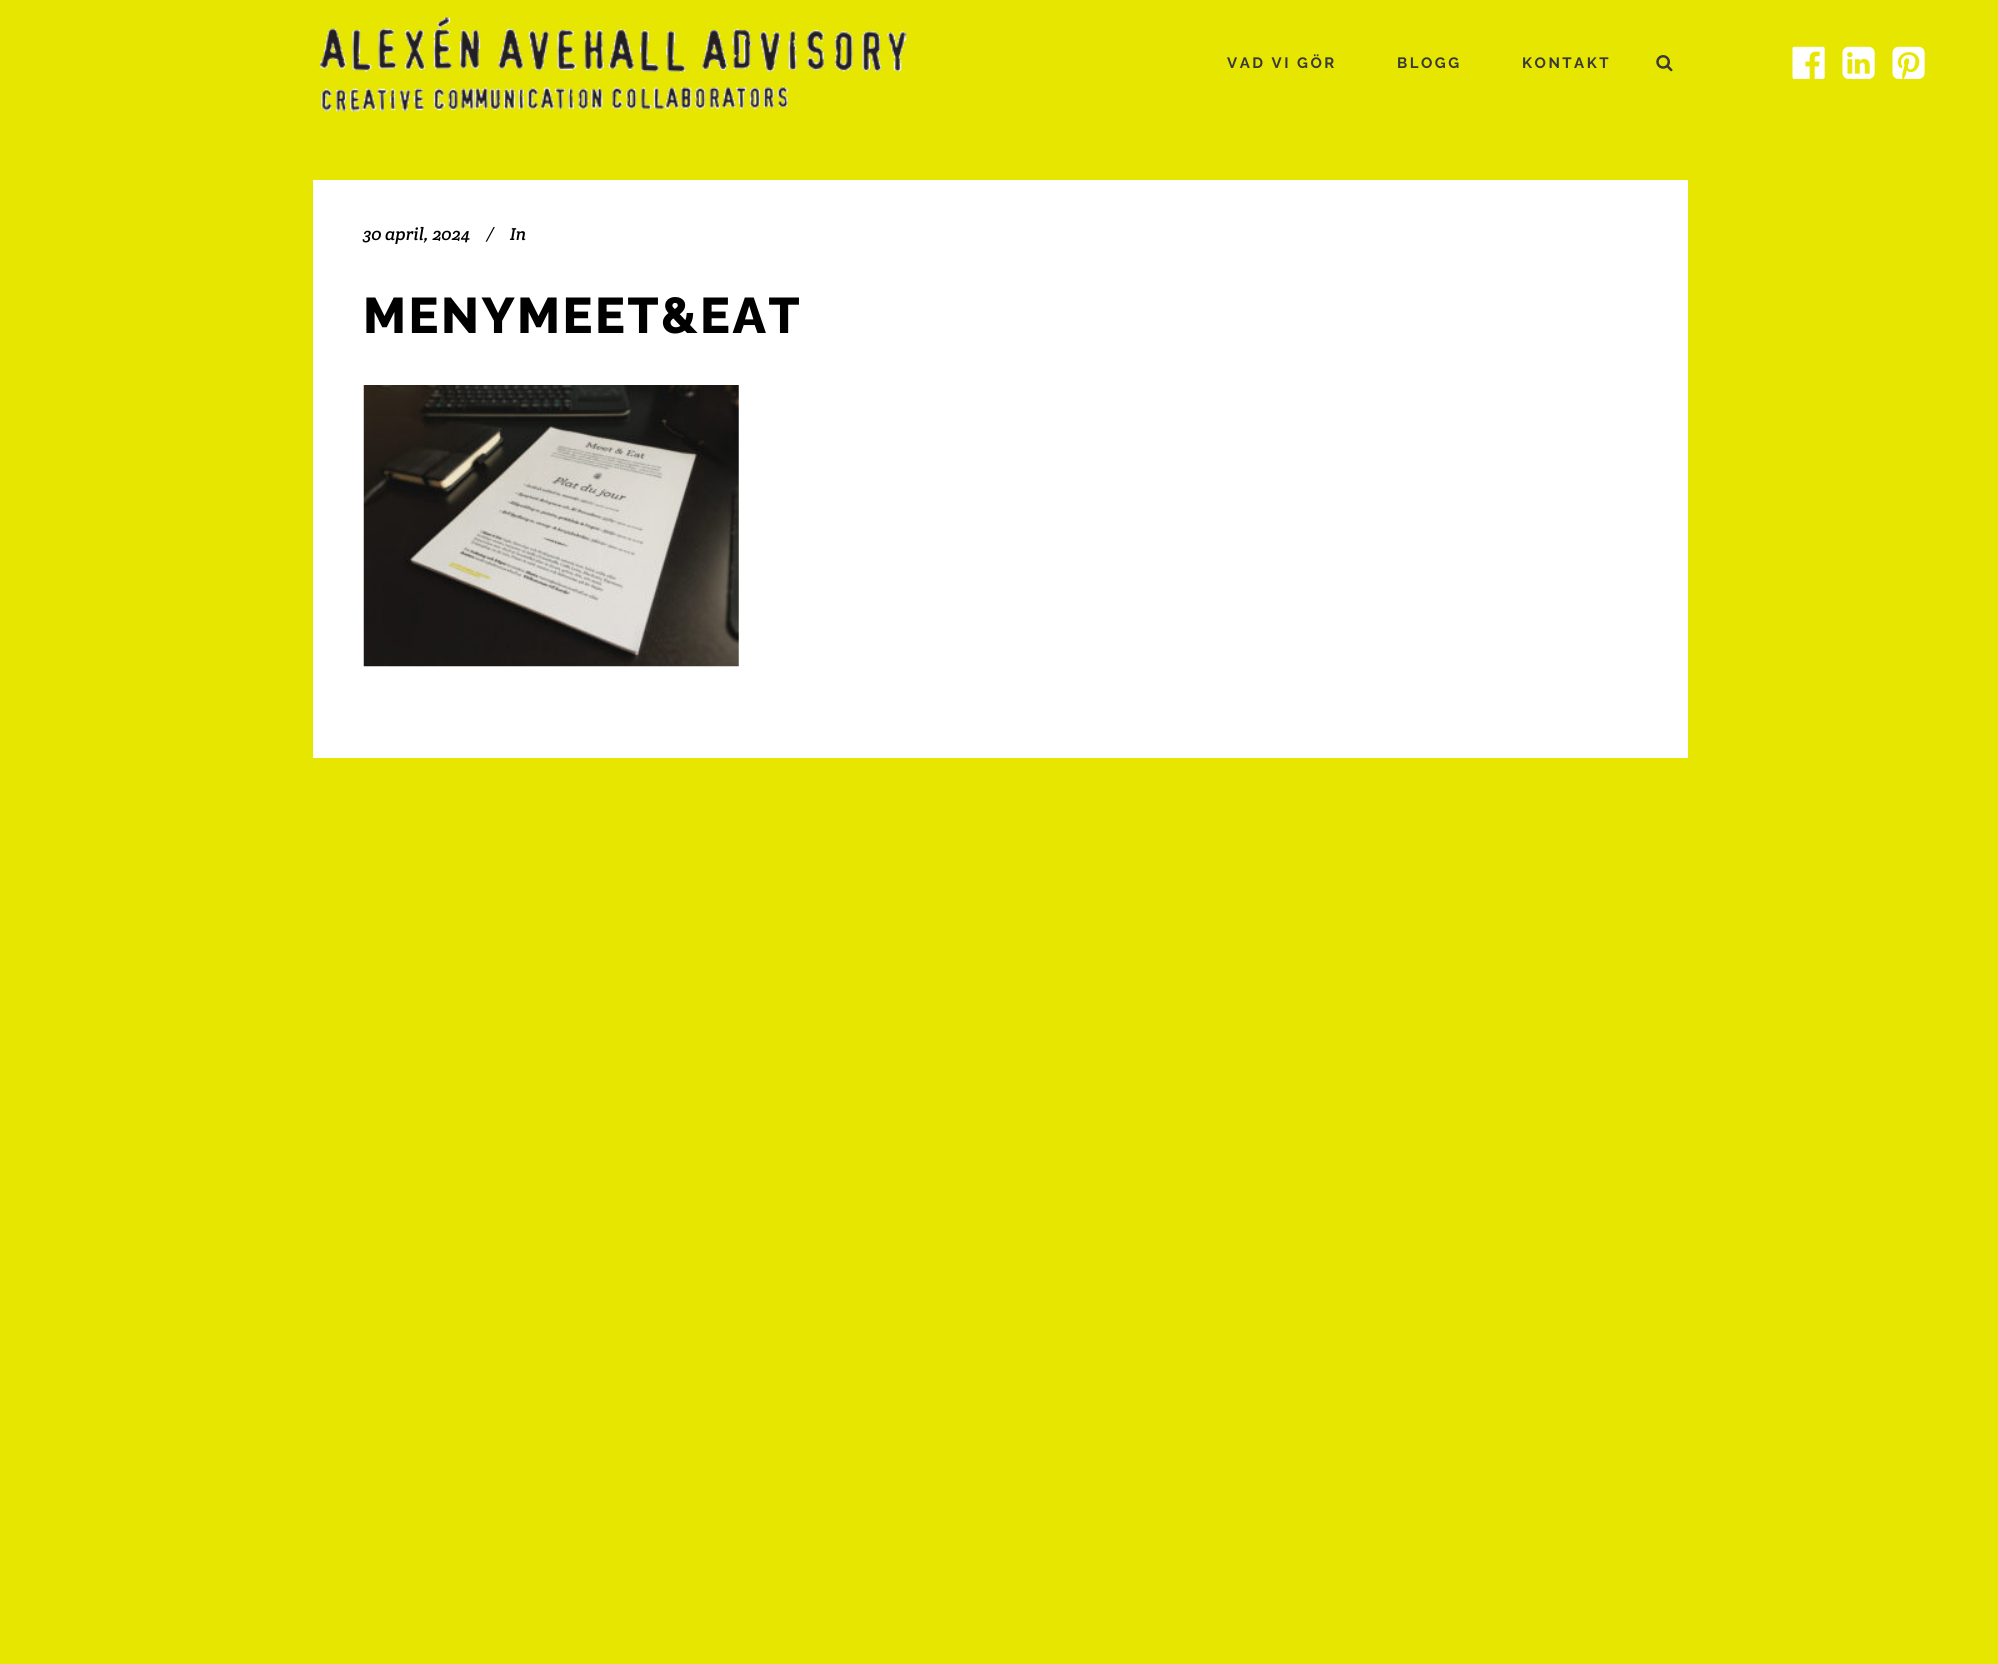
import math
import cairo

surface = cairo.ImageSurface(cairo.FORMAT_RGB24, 1998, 1664)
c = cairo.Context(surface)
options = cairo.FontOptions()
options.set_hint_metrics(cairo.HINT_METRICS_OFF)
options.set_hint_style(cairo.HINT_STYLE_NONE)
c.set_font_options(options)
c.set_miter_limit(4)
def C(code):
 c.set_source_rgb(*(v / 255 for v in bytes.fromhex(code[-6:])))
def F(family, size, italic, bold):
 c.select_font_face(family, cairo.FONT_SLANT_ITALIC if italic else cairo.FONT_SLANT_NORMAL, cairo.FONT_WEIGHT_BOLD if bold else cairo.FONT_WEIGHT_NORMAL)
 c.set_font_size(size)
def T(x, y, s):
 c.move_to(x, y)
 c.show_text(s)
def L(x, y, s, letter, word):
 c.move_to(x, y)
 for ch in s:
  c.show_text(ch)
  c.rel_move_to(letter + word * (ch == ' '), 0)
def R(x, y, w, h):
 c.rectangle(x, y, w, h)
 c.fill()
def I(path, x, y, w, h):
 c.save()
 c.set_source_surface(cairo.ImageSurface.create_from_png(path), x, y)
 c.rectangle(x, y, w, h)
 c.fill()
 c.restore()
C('e6e600')
c.paint()
I('1.png',319,17,588,95)
F('Raleway',15,0,1)
C('393939')
L(1227,68,'VAD VI GÖR',2.5,0)
L(1397,68,'BLOGG',2.5,0)
L(1522,68,'KONTAKT',2.5,0)
I('2.png',1656,55,17,17)
I('3.png',1792,46,33,33)
I('4.png',1842,46,33,33)
I('5.png',1892,46,33,33)
C('ffffff')
R(313,180,1375,578)
F('Crete Round',17.5,1,0)
C('000000')
T(363,240,'30 april, 2024')
T(486,240,'/')
T(510,240,'In')
F('Raleway ExtraBold',50,0,0)
L(363,333,'MENYMEET&EAT',2.5,0)
I('6.png',363,385,376,282)
surface.write_to_png('o.png')
